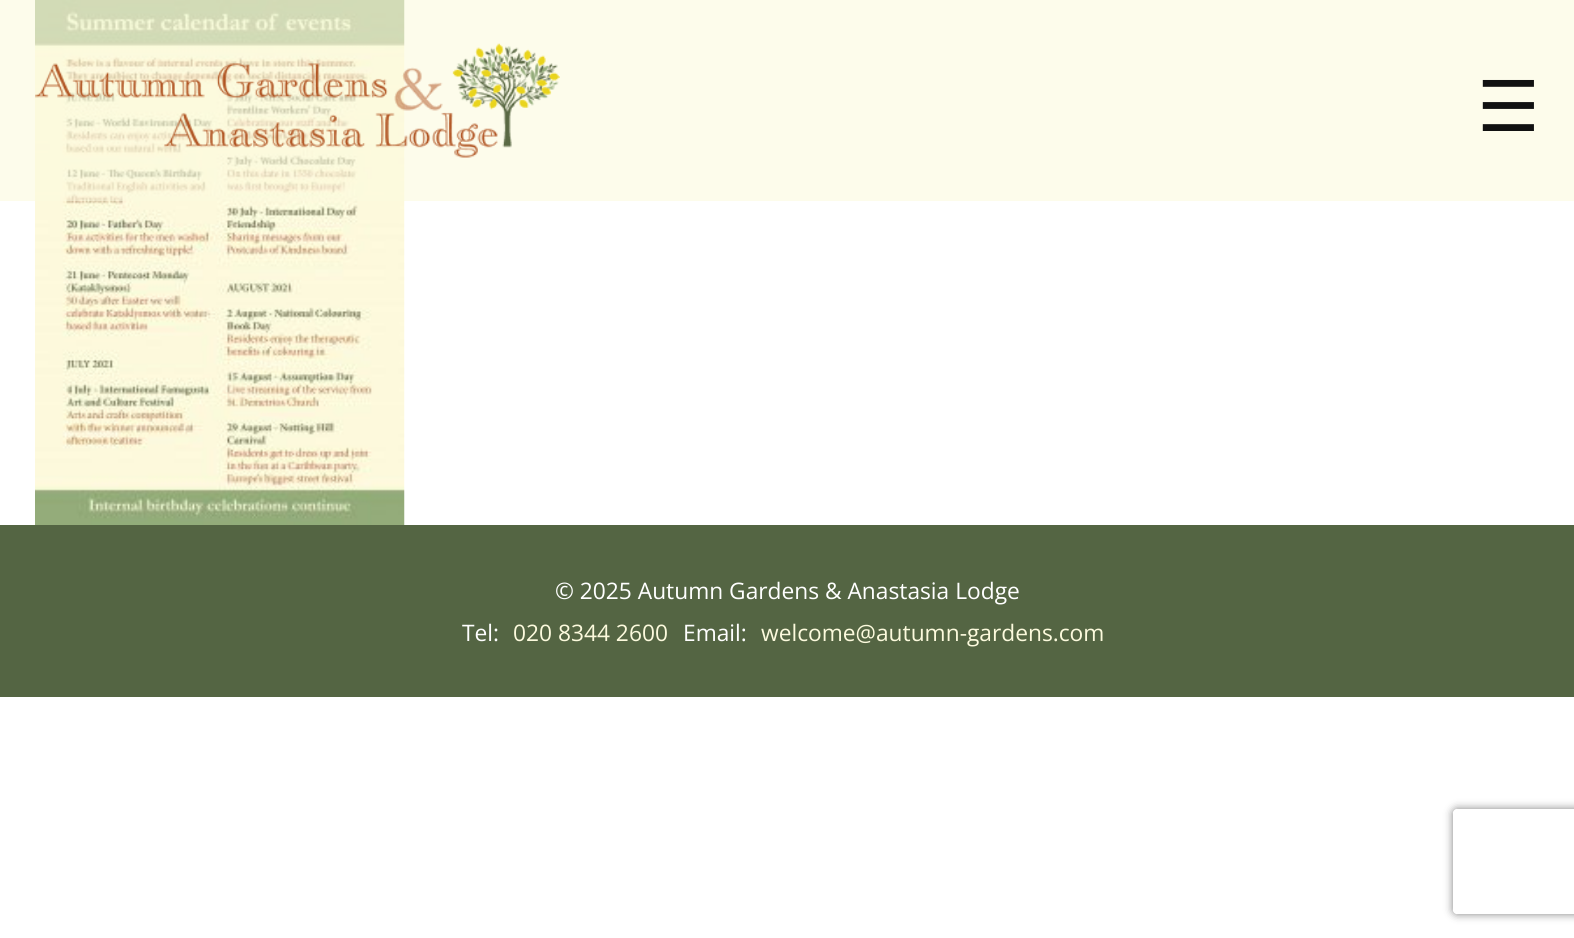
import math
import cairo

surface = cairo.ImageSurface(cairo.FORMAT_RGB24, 1574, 938)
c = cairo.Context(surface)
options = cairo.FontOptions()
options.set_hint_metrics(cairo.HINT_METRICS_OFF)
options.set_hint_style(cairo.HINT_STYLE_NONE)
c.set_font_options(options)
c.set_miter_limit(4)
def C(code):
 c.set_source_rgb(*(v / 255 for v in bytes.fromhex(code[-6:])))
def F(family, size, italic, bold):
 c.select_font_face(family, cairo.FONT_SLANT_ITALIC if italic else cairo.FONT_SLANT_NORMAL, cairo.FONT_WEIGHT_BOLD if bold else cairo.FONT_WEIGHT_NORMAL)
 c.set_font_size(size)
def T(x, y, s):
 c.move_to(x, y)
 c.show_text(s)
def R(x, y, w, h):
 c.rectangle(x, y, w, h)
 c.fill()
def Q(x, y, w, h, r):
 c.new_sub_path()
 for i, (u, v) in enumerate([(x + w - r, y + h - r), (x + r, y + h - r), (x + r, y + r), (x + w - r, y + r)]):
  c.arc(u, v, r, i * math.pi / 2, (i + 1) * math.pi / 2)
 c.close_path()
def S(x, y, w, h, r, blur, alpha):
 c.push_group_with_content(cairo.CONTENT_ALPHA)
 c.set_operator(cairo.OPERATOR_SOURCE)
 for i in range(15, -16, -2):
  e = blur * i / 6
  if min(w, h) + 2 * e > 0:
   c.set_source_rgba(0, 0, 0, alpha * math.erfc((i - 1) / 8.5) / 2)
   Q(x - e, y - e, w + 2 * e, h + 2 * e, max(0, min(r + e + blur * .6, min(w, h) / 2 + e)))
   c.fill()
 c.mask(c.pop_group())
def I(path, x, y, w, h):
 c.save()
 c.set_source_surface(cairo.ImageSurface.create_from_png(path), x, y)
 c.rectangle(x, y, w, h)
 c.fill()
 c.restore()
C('ffffff')
c.paint()
I('1.png',35,0,370,525)
c.set_source_rgba(0.988,0.98,0.867,0.6)
R(0,0,1574,201)
I('2.png',35,43,525,115)
F('DejaVu Sans',70,0,0)
C('111111')
T(1477,131,'☰')
C('546543')
R(0,525,1574,172)
F('Open Sans',22.75,0,0)
C('ffffff')
T(555,599,'© 2025 Autumn Gardens & Anastasia Lodge')
T(462,641,'Tel:')
C('fcfadd')
T(513,641,'020 8344 2600')
C('ffffff')
T(683,641,'Email:')
C('fcfadd')
T(761,641,'welcome@autumn-gardens.com')
c.save()
c.set_fill_rule(cairo.FILL_RULE_EVEN_ODD)
c.new_path()
c.move_to(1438,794)
c.line_to(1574,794)
c.line_to(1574,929)
c.line_to(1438,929)
c.close_path()
c.move_to(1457,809)
c.line_to(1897,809)
c.curve_to(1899,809,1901,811,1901,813)
c.line_to(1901,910)
c.curve_to(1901,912,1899,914,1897,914)
c.line_to(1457,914)
c.curve_to(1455,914,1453,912,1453,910)
c.line_to(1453,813)
c.curve_to(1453,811,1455,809,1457,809)
c.close_path()
c.clip()
C('808080')
S(1453,809,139,105,4,4.5,1)
c.restore()
surface.write_to_png('o.png')
